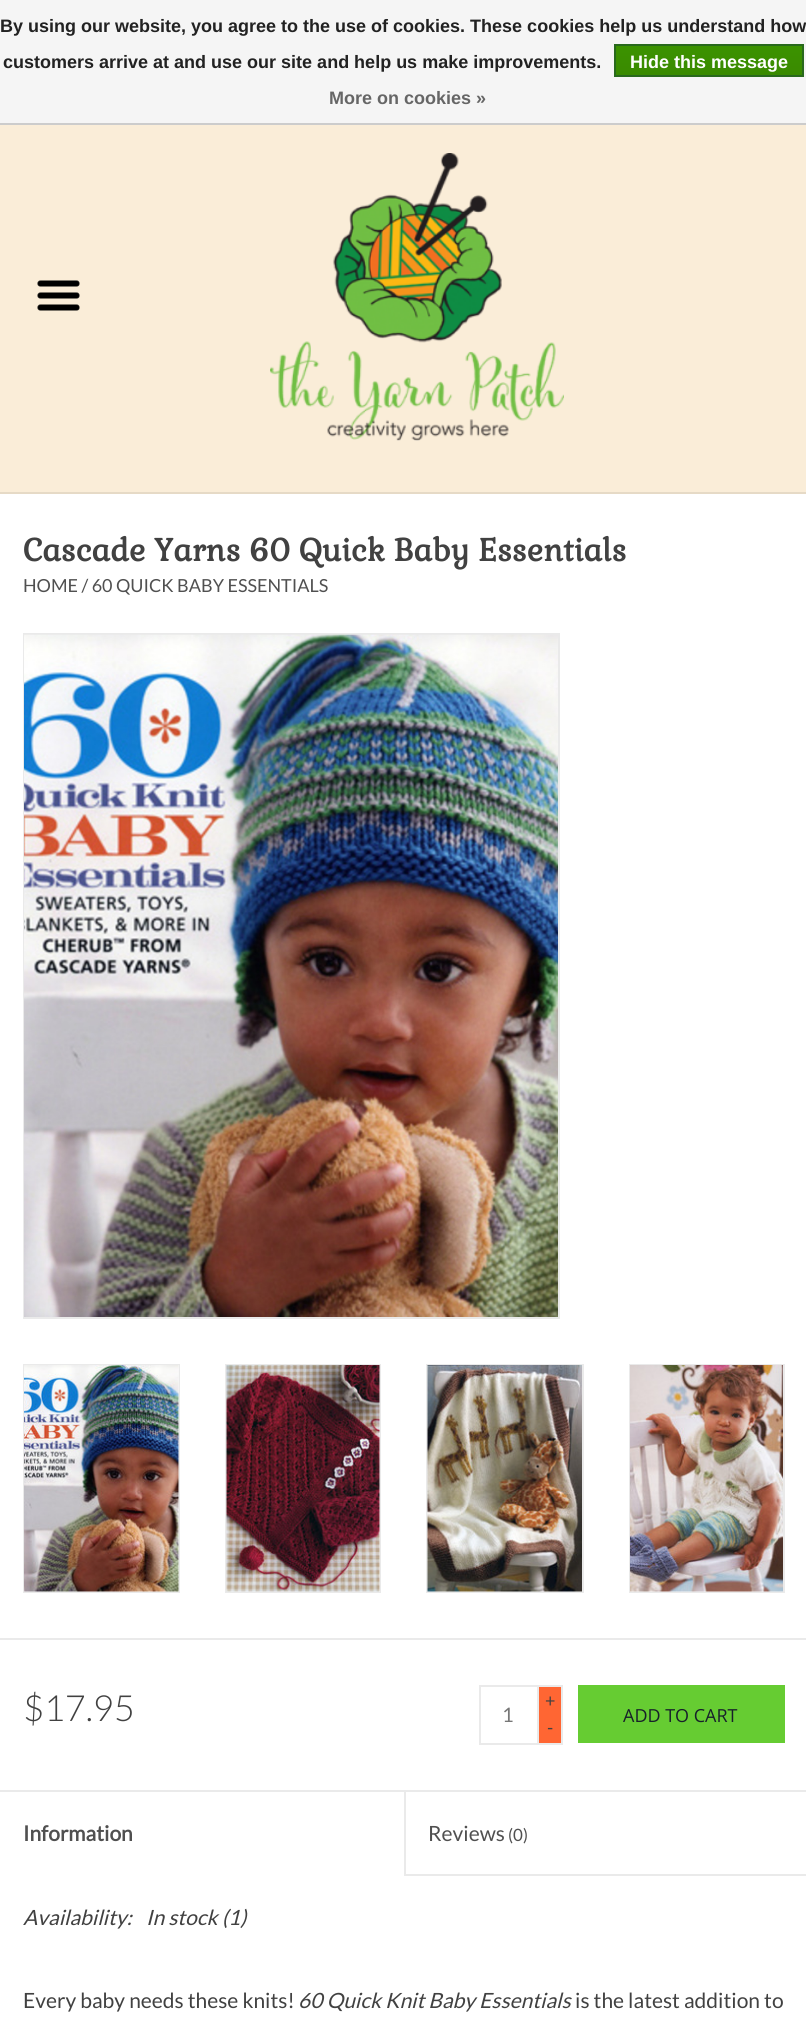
import math
import cairo

surface = cairo.ImageSurface(cairo.FORMAT_RGB24, 806, 2022)
c = cairo.Context(surface)
options = cairo.FontOptions()
options.set_hint_metrics(cairo.HINT_METRICS_OFF)
options.set_hint_style(cairo.HINT_STYLE_NONE)
c.set_font_options(options)
c.set_miter_limit(4)
def C(code):
 c.set_source_rgb(*(v / 255 for v in bytes.fromhex(code[-6:])))
def F(family, size, italic, bold):
 c.select_font_face(family, cairo.FONT_SLANT_ITALIC if italic else cairo.FONT_SLANT_NORMAL, cairo.FONT_WEIGHT_BOLD if bold else cairo.FONT_WEIGHT_NORMAL)
 c.set_font_size(size)
def T(x, y, s):
 c.move_to(x, y)
 c.show_text(s)
def R(x, y, w, h):
 c.rectangle(x, y, w, h)
 c.fill()
def I(path, x, y, w, h):
 c.save()
 c.set_source_surface(cairo.ImageSurface.create_from_png(path), x, y)
 c.rectangle(x, y, w, h)
 c.fill()
 c.restore()
C('faedd8')
c.paint()
C('f5f5f5')
R(0,0,806,123)
C('cccccc')
R(0,123,806,2)
F('Liberation Sans',18,0,1)
C('222222')
T(0,32,'By using our website, you agree to the use of cookies. These cookies help us understand how')
T(3,68,'customers arrive at and use our site and help us make improvements.')
gradient = cairo.LinearGradient(709,45,709,75)
gradient.add_color_stop_rgba(0,0.235,0.576,0,1)
gradient.add_color_stop_rgba(1,0.224,0.541,0,1)
c.set_source(gradient)
R(616,46,186,29)
c.rectangle(615,45,188,31)
C('29691d')
c.stroke()
C('ffffff')
T(630,68,'Hide this message')
C('666666')
T(329,104,'More on cookies »')
C('e6dac6')
R(0,492,806,2)
I('1.png',270,153,294,288)
I('2.png',37,280,43,31)
C('ffffff')
R(0,494,806,1528)
F('Gabriela',31,0,1)
C('414141')
T(23,561,'Cascade Yarns 60 Quick Baby Essentials')
F('Lato',18,0,0)
C('505050')
T(23,592,'HOME / 60 QUICK BABY ESSENTIALS')
c.rectangle(24,634,535,684)
C('eaeaea')
c.stroke()
I('3.png',24,634,534,683)
c.rectangle(24,1365,155,227)
c.stroke()
C('f7f7f7')
R(24,1365,155,227)
I('4.png',24,1365,155,227)
c.rectangle(226,1365,154,227)
C('eaeaea')
c.stroke()
C('f7f7f7')
R(227,1365,153,227)
I('5.png',226,1365,154,227)
c.rectangle(427,1365,156,227)
C('eaeaea')
c.stroke()
C('f7f7f7')
R(428,1591,154,1)
I('6.png',427,1365,155,227)
c.rectangle(630,1365,154,227)
C('eaeaea')
c.stroke()
C('f7f7f7')
R(630,1591,153,1)
I('7.png',630,1365,153,227)
C('eaeaea')
R(0,1638,806,2)
F('Lato Light',36,0,0)
C('414141')
T(23,1721,'$17.95')
c.rectangle(480,1686,58,58)
C('eaeaea')
c.stroke()
F('Lato',20,0,0)
C('777777')
T(502,1722,'1')
C('ff6633')
R(539,1687,22,56)
C('eaeaea')
R(539,1685,24,2)
R(561,1685,2,60)
R(539,1743,24,2)
F('Lato',18,0,0)
C('414141')
T(545,1707,'+')
T(547,1734,'-')
C('66cc32')
R(578,1685,207,58)
F('Open Sans',18,0,0)
C('17202a')
T(623,1722,'ADD TO CART')
C('eaeaea')
R(0,1790,806,2)
F('Lato',21,0,1)
C('505050')
T(23,1841,'Information')
C('eaeaea')
R(404,1874,402,2)
R(404,1791,2,84)
F('Lato',21,0,0)
C('505050')
T(428,1841,'Reviews')
F('Lato',17,0,0)
T(508,1841,'(0)')
F('Lato',21,1,0)
C('414141')
T(23,1925,'Availability:')
T(146,1925,'In stock (1)')
F('Lato',21,0,0)
T(23,2008,'Every baby needs these knits!')
F('Lato',21,1,0)
T(298,2008,'60 Quick Knit Baby Essentials')
F('Lato',21,0,0)
T(575,2008,'is the latest addition to')
surface.write_to_png('o.png')
